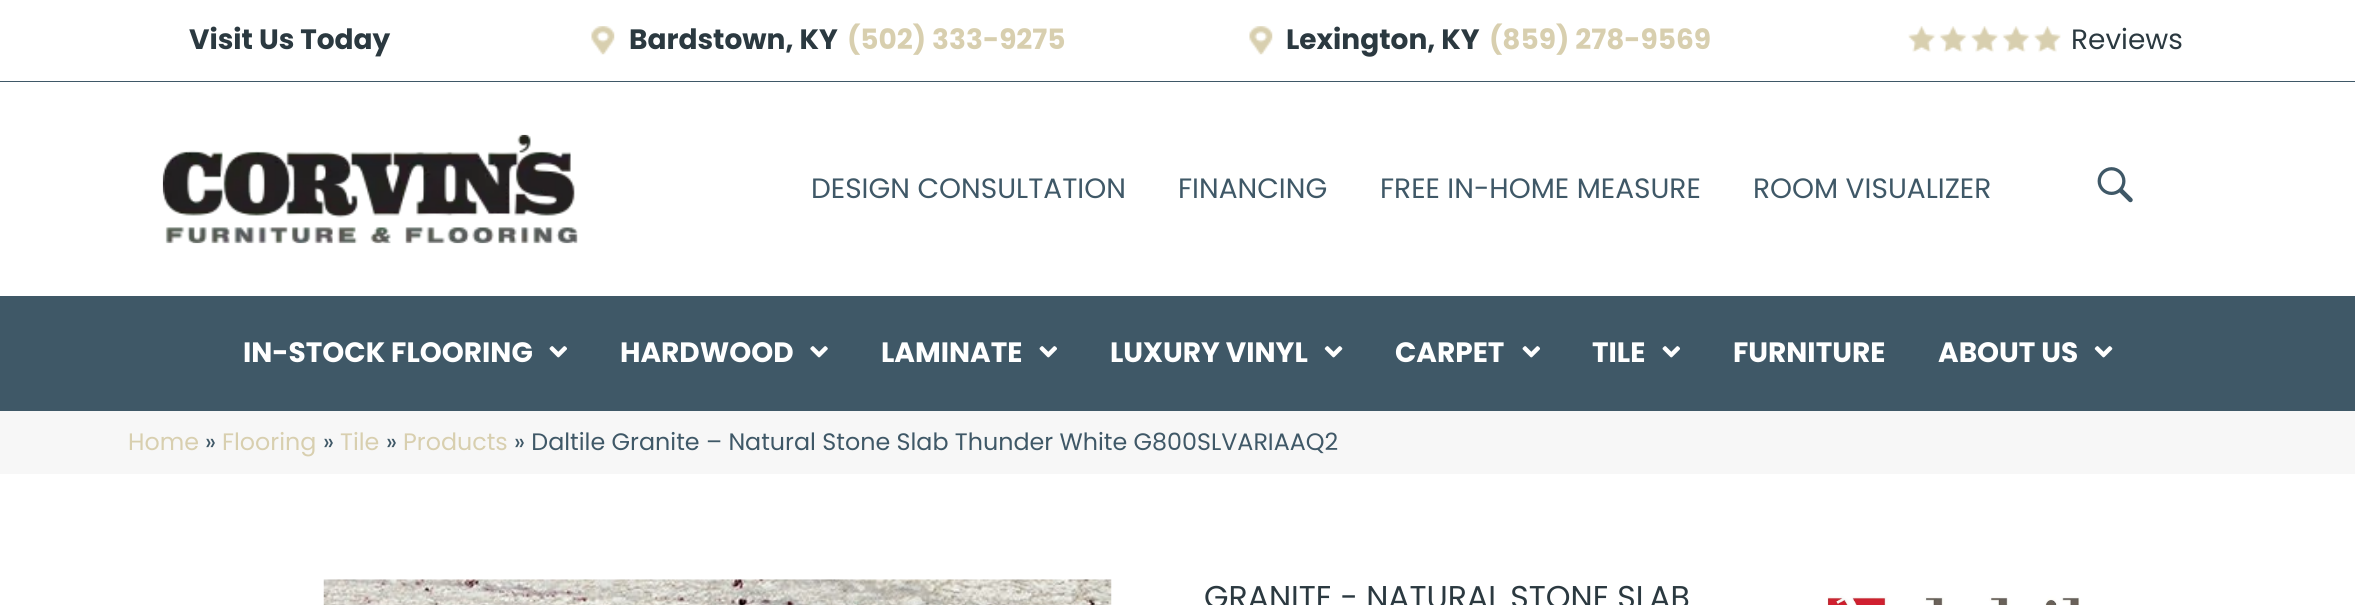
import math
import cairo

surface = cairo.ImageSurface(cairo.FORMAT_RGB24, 2355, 605)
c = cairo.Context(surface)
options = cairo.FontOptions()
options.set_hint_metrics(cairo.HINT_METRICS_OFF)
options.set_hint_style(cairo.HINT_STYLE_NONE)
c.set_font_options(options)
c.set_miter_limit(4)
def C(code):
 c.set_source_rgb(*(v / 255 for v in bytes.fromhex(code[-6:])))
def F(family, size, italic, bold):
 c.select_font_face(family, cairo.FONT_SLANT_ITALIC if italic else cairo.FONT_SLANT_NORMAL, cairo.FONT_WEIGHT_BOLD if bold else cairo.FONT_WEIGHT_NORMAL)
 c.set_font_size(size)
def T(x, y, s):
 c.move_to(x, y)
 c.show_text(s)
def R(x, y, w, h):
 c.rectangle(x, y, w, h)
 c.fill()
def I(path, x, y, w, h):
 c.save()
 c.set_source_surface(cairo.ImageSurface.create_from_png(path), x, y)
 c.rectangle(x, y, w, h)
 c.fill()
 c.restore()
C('ffffff')
c.paint()
C('3f5867')
R(0,81,2355,1)
F('Poppins',28,0,1)
C('2b3940')
T(189,49,'Visit Us Today')
I('1.png',591,26,24,29)
T(629,49,'Bardstown, KY')
C('d8cfaf')
T(847,49,'(502) 333-9275')
I('2.png',1249,26,24,29)
C('2b3940')
T(1286,49,'Lexington, KY')
C('d8cfaf')
T(1489,49,'(859) 278-9569')
I('3.png',1908,26,153,27)
F('Poppins',28,0,0)
C('2b3940')
T(2071,49,'Reviews')
I('4.png',162,134,416,110)
C('3f5867')
T(811,198,'DESIGN CONSULTATION')
T(1178,198,'FINANCING')
T(1380,198,'FREE IN-HOME MEASURE')
T(1753,198,'ROOM VISUALIZER')
I('5.png',2097,167,36,36)
R(0,296,2355,115)
F('Poppins',28,0,1)
C('ffffff')
T(243,362,'IN-STOCK FLOORING')
I('6.png',549,346,18,12)
T(620,362,'HARDWOOD')
I('7.png',810,346,18,12)
T(881,362,'LAMINATE')
I('6.png',1039,346,18,12)
T(1110,362,'LUXURY VINYL')
I('8.png',1324,346,19,12)
T(1395,362,'CARPET')
I('6.png',1522,346,18,12)
T(1592,362,'TILE')
I('6.png',1662,346,18,12)
T(1733,362,'FURNITURE')
T(1938,362,'ABOUT US')
I('8.png',2094,346,19,12)
C('f7f7f7')
R(0,411,2355,63)
F('Poppins',23.8,0,0)
C('d8cfaf')
T(128,450,'Home')
C('3f5867')
T(205,450,'»')
C('d8cfaf')
T(222,450,'Flooring')
C('3f5867')
T(323,450,'»')
C('d8cfaf')
T(340,450,'Tile')
C('3f5867')
T(386,450,'»')
C('d8cfaf')
T(403,450,'Products')
C('3f5867')
T(514,450,'» Daltile Granite – Natural Stone Slab Thunder White G800SLVARIAAQ2')
I('9.png',323,579,789,26)
F('Poppins',31.5,0,0)
C('2b3940')
T(1204,608,'GRANITE - NATURAL STONE SLAB')
I('10.png',1827,596,253,9)
surface.write_to_png('o.png')
